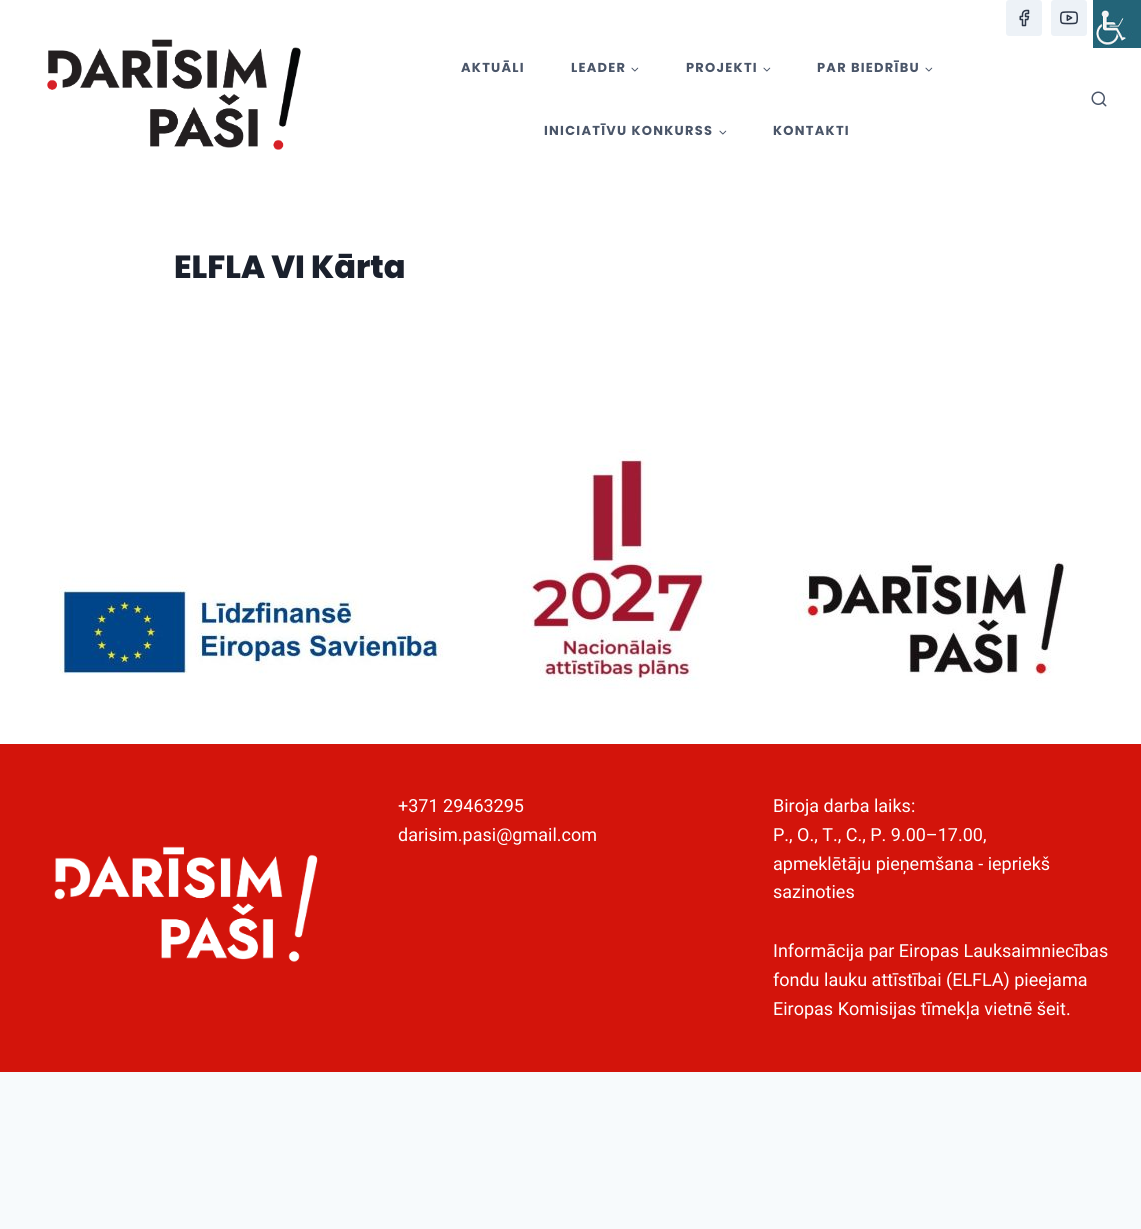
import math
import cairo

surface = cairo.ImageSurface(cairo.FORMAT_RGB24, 1141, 1229)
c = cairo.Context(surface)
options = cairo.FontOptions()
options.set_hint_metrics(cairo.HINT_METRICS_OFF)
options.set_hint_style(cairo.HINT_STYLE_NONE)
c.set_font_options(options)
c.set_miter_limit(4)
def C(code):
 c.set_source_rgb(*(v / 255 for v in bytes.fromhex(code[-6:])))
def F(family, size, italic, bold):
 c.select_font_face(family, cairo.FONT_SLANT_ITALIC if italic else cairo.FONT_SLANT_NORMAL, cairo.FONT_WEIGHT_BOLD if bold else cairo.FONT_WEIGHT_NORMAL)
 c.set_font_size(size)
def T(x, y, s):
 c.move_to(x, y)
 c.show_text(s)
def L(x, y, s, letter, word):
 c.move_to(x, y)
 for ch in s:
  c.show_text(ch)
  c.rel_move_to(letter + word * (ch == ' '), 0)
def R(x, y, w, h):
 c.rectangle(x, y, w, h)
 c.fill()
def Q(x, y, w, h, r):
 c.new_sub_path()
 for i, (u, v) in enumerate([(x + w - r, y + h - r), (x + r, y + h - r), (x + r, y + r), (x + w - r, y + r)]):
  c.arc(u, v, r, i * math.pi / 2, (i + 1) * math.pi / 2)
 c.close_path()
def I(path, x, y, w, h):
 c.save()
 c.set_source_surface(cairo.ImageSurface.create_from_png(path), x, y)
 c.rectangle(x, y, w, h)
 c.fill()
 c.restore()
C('f7fafc')
c.paint()
C('ffffff')
R(0,0,1141,744)
I('1.png',1093,0,48,48)
C('edf2f7')
Q(1006,0,36,36,3)
c.fill()
I('2.png',1019,9,11,18)
Q(1051,0,36,36,3)
c.fill()
I('3.png',1060,11,18,14)
I('4.png',47,39,254,111)
F('Poppins',13,0,1)
C('4a5568')
L(461,72,'AKTUĀLI',1.25,0)
L(571,72,'LEADER',1.25,0)
I('5.png',631,67,8,5)
L(686,72,'PROJEKTI',1.25,0)
I('5.png',763,67,8,5)
L(817,72,'PAR BIEDRĪBU',1.25,0)
I('5.png',925,67,8,5)
L(544,135,'INICIATĪVU KONKURSS',1.25,0)
I('5.png',719,130,8,5)
L(773,135,'KONTAKTI',1.25,0)
I('6.png',1091,91,16,16)
F('Poppins ExtraBold',32,0,0)
C('1a202c')
T(174,278,'ELFLA VI Kārta')
I('7.png',59,449,1008,240)
C('d3140b')
R(0,744,1141,328)
F('Roboto',18,0,0)
C('ffffff')
T(398,812,'+371 29463295')
T(398,841,'darisim.pasi@gmail.com')
T(773,812,'Biroja darba laiks:')
T(773,841,'P., O., T., C., P. 9.00–17.00,')
T(773,870,'apmeklētāju pieņemšana - iepriekš')
T(773,898,'sazinoties')
T(773,957,'Informācija par Eiropas Lauksaimniecības')
T(773,986,'fondu lauku attīstībai (ELFLA) pieejama')
T(773,1015,'Eiropas Komisijas tīmekļa vietnē šeit.')
I('8.png',54,846,264,116)
surface.write_to_png('o.png')
